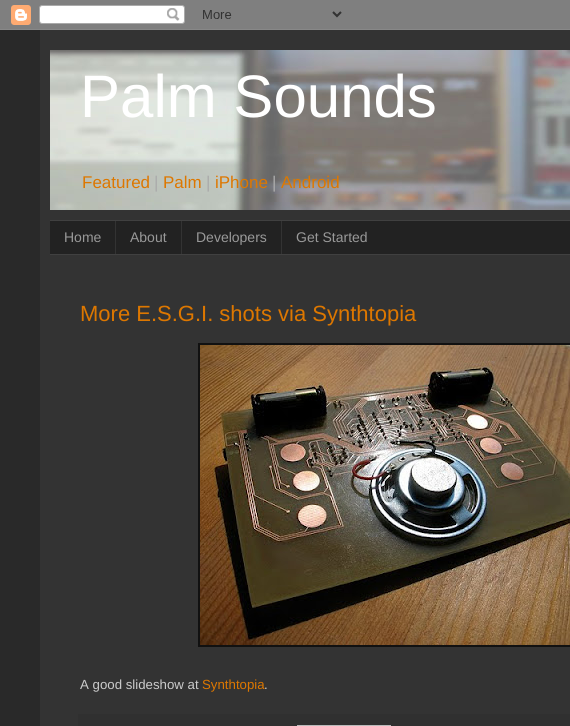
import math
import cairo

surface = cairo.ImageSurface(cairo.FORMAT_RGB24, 570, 726)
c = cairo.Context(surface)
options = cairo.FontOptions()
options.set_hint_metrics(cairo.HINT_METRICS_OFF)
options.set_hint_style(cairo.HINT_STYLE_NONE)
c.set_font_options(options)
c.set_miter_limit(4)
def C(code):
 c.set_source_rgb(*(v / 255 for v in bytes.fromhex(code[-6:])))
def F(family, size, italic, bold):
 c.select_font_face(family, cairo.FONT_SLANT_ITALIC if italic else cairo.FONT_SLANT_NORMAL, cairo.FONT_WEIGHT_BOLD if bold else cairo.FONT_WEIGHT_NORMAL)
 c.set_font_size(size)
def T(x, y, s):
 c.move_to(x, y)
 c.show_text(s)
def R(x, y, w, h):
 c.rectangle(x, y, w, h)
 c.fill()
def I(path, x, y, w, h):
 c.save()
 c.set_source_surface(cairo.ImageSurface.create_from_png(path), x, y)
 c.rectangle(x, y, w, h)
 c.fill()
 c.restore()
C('292929')
c.paint()
I('1.png',0,0,570,30)
C('333333')
R(40,30,530,696)
I('2.png',50,50,520,160)
F('Liberation Sans',60,0,0)
C('ffffff')
T(80,117,'Palm Sounds')
F('Liberation Sans',17,0,0)
C('dd7700')
T(82,188,'Featured')
C('aaaaaa')
T(154,188,'|')
C('dd7700')
T(163,188,'Palm')
C('aaaaaa')
T(206,188,'|')
C('dd7700')
T(215,188,'iPhone')
C('aaaaaa')
T(272,188,'|')
C('dd7700')
T(281,188,'Android')
C('222222')
R(50,221,520,33)
C('404040')
R(50,220,520,1)
R(50,254,520,1)
F('Liberation Sans',14,0,0)
C('999999')
T(64,242,'Home')
C('333333')
R(115,221,1,33)
C('999999')
T(130,242,'About')
C('333333')
R(181,221,1,33)
C('999999')
T(196,242,'Developers')
C('333333')
R(281,221,1,33)
C('999999')
T(296,242,'Get Started')
F('Liberation Sans',22,0,0)
C('dd7700')
T(80,321,'More E.S.G.I. shots via Synthtopia')
C('111111')
R(198,343,372,304)
I('3.png',200,345,370,300)
F('Liberation Sans',13.25,0,0)
C('cccccc')
T(80,689,'A good slideshow at')
C('dd7700')
T(202,689,'Synthtopia')
C('cccccc')
T(264,689,'.')
C('303030')
R(78,714,492,12)
C('bbbbbb')
R(297,725,94,1)
surface.write_to_png('o.png')
